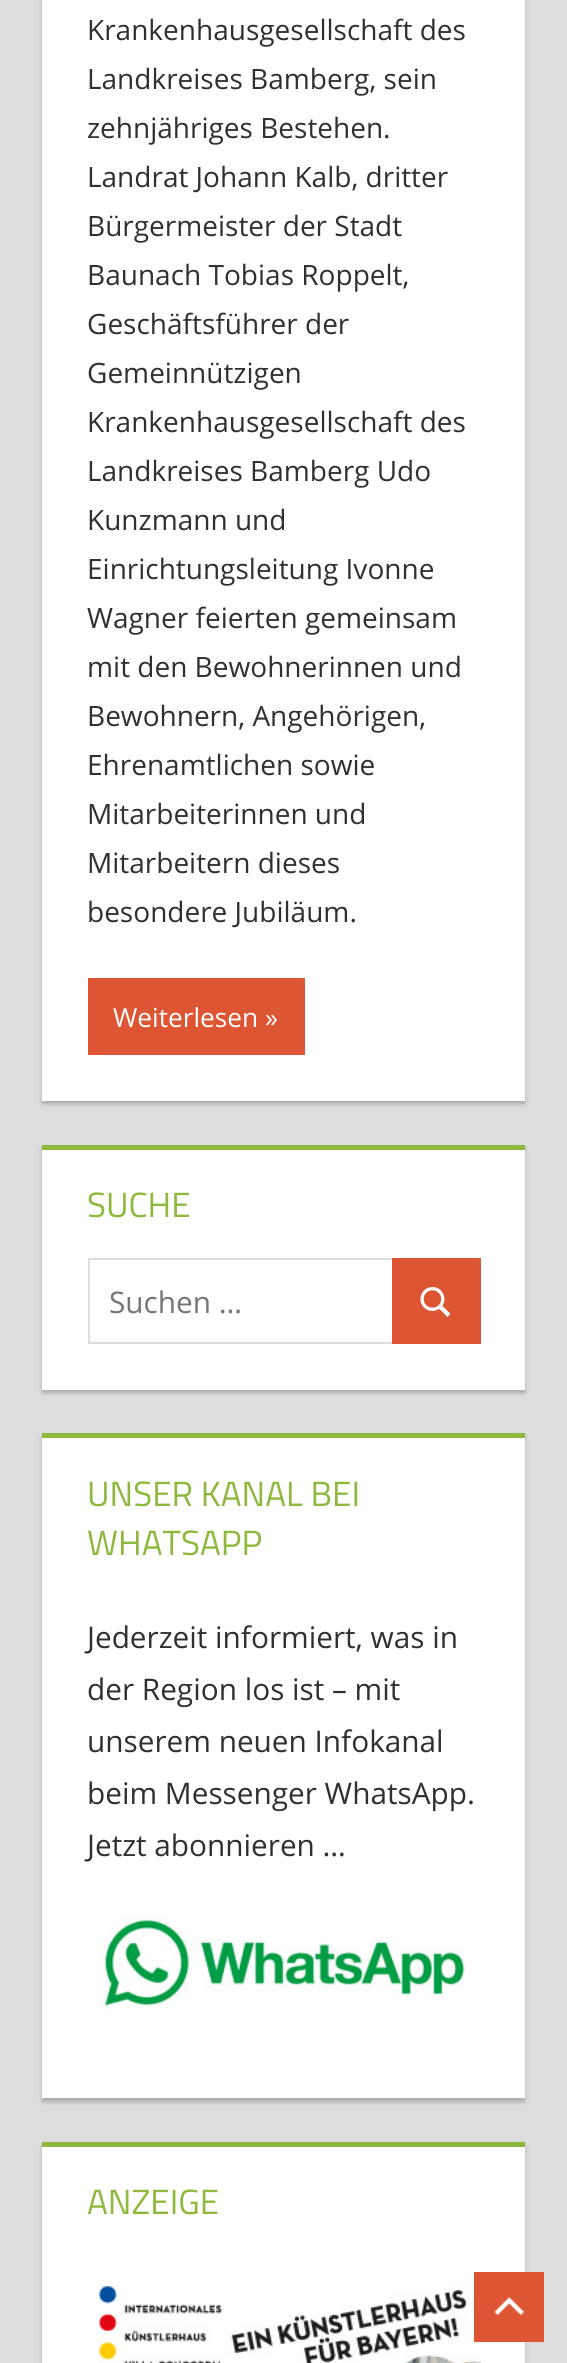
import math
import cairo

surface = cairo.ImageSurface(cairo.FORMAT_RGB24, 567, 2363)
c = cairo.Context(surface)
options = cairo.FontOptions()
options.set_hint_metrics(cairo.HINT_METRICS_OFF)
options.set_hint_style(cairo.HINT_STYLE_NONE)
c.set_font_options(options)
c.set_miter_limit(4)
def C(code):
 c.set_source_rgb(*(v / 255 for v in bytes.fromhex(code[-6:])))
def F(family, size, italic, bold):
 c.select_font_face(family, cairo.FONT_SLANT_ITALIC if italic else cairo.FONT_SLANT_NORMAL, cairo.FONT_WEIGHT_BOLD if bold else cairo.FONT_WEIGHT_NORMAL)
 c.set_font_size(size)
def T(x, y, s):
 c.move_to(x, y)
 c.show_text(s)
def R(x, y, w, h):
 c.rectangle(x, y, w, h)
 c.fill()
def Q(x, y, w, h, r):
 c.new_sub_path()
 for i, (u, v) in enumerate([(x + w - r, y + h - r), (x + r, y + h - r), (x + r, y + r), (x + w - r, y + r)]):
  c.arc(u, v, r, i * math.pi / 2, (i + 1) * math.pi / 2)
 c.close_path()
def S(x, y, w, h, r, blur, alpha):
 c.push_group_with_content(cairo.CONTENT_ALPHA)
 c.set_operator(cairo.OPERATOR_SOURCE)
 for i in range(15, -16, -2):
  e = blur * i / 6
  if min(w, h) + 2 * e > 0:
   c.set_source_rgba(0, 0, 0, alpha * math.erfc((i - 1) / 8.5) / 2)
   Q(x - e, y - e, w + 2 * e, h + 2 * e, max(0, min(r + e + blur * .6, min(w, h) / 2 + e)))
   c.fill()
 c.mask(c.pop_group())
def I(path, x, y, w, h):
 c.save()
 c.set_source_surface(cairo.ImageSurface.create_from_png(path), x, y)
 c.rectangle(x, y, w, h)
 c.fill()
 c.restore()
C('dddddd')
c.paint()
C('aaaaaa')
S(42,-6,483,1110,0,2,1)
C('ffffff')
R(42,0,483,1101)
F('Open Sans',28,0,0)
C('303030')
T(87,40,'Krankenhausgesellschaft des')
T(87,89,'Landkreises Bamberg, sein')
T(87,138,'zehnjähriges Bestehen.')
T(87,187,'Landrat Johann Kalb, dritter')
T(87,236,'Bürgermeister der Stadt')
T(87,285,'Baunach Tobias Roppelt,')
T(87,334,'Geschäftsführer der')
T(87,383,'Gemeinnützigen')
T(87,432,'Krankenhausgesellschaft des')
T(87,481,'Landkreises Bamberg Udo')
T(87,530,'Kunzmann und')
T(87,579,'Einrichtungsleitung Ivonne')
T(87,628,'Wagner feierten gemeinsam')
T(87,677,'mit den Bewohnerinnen und')
T(87,726,'Bewohnern, Angehörigen,')
T(87,775,'Ehrenamtlichen sowie')
T(87,824,'Mitarbeiterinnen und')
T(87,873,'Mitarbeitern dieses')
T(87,922,'besondere Jubiläum.')
C('dd5533')
R(88,978,217,77)
F('Open Sans',26.25,0,0)
C('ffffff')
T(113,1027,'Weiterlesen »')
C('aaaaaa')
S(42,1148,483,245,0,2,1)
C('ffffff')
R(42,1150,483,240)
C('8eb83e')
R(42,1145,483,5)
F('Titillium Web',35,0,0)
T(87,1217,'SUCHE')
c.rectangle(89,1259,304,84)
C('dddddd')
c.stroke()
F('Open Sans',29.75,0,0)
C('757575')
T(109,1313,'Suchen …')
C('dd5533')
R(392,1258,89,86)
I('1.png',420,1287,31,30)
C('aaaaaa')
S(42,1437,483,665,0,2,1)
C('ffffff')
R(42,1438,483,660)
C('8eb83e')
R(42,1433,483,5)
F('Titillium Web',35,0,0)
T(87,1506,'UNSER KANAL BEI')
T(87,1555,'WHATSAPP')
F('Open Sans',29.75,0,0)
C('303030')
T(87,1648,'Jederzeit informiert, was in')
T(87,1700,'der Region los ist – mit')
T(87,1752,'unserem neuen Infokanal')
T(87,1804,'beim Messenger WhatsApp.')
T(87,1856,'Jetzt abonnieren …')
I('2.png',98,1916,367,94)
C('aaaaaa')
S(42,2146,483,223,0,2,1)
C('ffffff')
R(42,2147,483,216)
C('8eb83e')
R(42,2142,483,5)
F('Titillium Web',35,0,0)
T(87,2214,'ANZEIGE')
I('3.png',98,2282,384,81)
C('dd5533')
R(474,2272,70,70)
I('4.png',494,2297,30,19)
surface.write_to_png('o.png')
